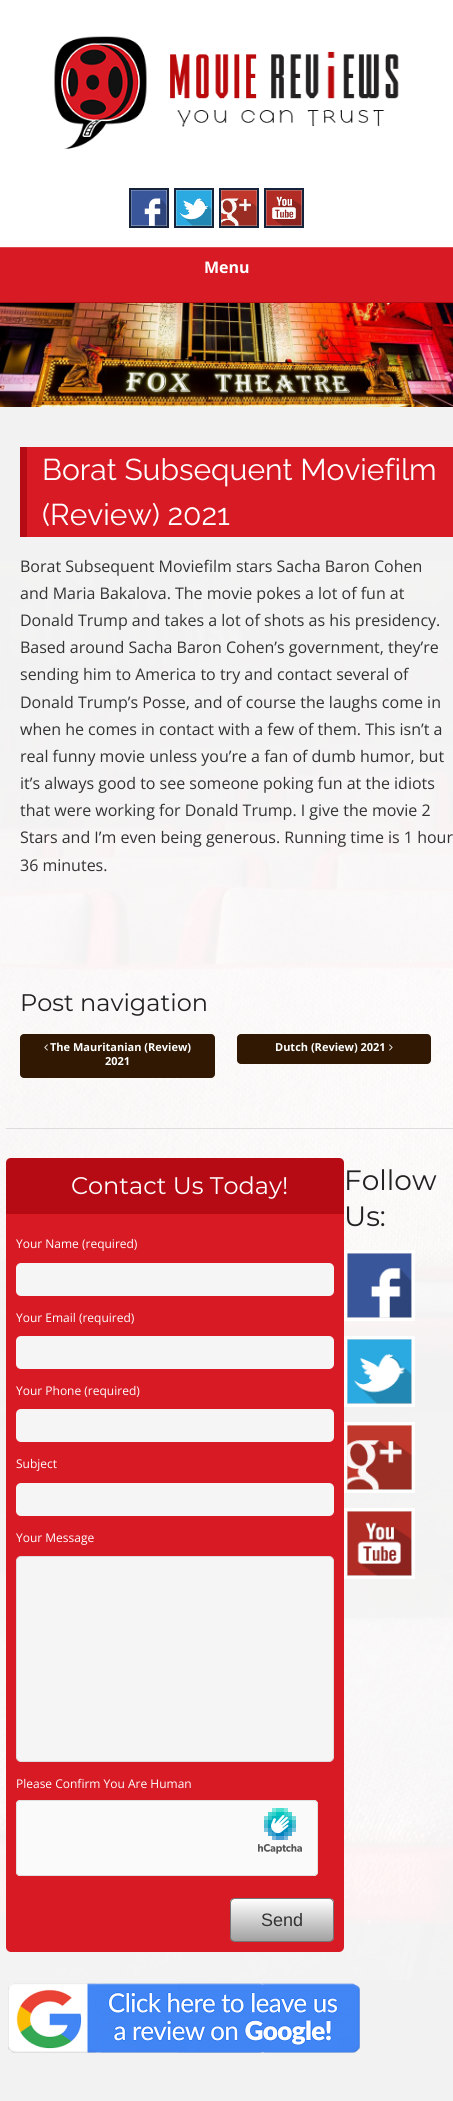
import math
import cairo

surface = cairo.ImageSurface(cairo.FORMAT_RGB24, 453, 2101)
c = cairo.Context(surface)
options = cairo.FontOptions()
options.set_hint_metrics(cairo.HINT_METRICS_OFF)
options.set_hint_style(cairo.HINT_STYLE_NONE)
c.set_font_options(options)
c.set_miter_limit(4)
def C(code):
 c.set_source_rgb(*(v / 255 for v in bytes.fromhex(code[-6:])))
def F(family, size, italic, bold):
 c.select_font_face(family, cairo.FONT_SLANT_ITALIC if italic else cairo.FONT_SLANT_NORMAL, cairo.FONT_WEIGHT_BOLD if bold else cairo.FONT_WEIGHT_NORMAL)
 c.set_font_size(size)
def T(x, y, s):
 c.move_to(x, y)
 c.show_text(s)
def R(x, y, w, h):
 c.rectangle(x, y, w, h)
 c.fill()
def Q(x, y, w, h, r):
 c.new_sub_path()
 for i, (u, v) in enumerate([(x + w - r, y + h - r), (x + r, y + h - r), (x + r, y + r), (x + w - r, y + r)]):
  c.arc(u, v, r, i * math.pi / 2, (i + 1) * math.pi / 2)
 c.close_path()
def I(path, x, y, w, h):
 c.save()
 c.set_source_surface(cairo.ImageSurface.create_from_png(path), x, y)
 c.rectangle(x, y, w, h)
 c.fill()
 c.restore()
C('ffffff')
c.paint()
I('1.png',54,36,345,113)
c.rectangle(130,189,38,38)
C('14233a')
c.stroke()
c.rectangle(175,189,38,38)
c.stroke()
c.rectangle(220,189,38,38)
c.stroke()
c.rectangle(265,189,38,38)
c.stroke()
I('2.png',131,190,36,36)
I('3.png',176,190,36,36)
I('4.png',221,190,36,36)
I('5.png',266,190,36,36)
C('d81a24')
R(0,248,453,54)
C('b60b14')
R(0,302,453,1)
C('e04850')
R(0,247,453,1)
F('Open Sans',16,0,1)
C('ffffff')
T(204,273,'Menu')
I('6.png',0,303,453,104)
C('f2f2f2')
R(0,407,453,1694)
I('7.png',0,562,453,1418)
C('d81a24')
R(27,447,426,90)
C('b60b14')
R(20,447,7,90)
F('Raleway',30,0,0)
C('ffffff')
T(42,480,'Borat Subsequent Moviefilm')
T(42,525,'(Review) 2021')
F('Open Sans',16,0,0)
C('333333')
T(20,572,'Borat Subsequent Moviefilm stars Sacha Baron Cohen')
T(20,599,'and Maria Bakalova. The movie pokes a lot of fun at')
T(20,626,'Donald Trump and takes a lot of shots as his presidency.')
T(20,653,'Based around Sacha Baron Cohen’s government, they’re')
T(20,680,'sending him to America to try and contact several of')
T(20,708,'Donald Trump’s Posse, and of course the laughs come in')
T(20,735,'when he comes in contact with a few of them. This isn’t a')
T(20,762,'real funny movie unless you’re a fan of dumb humor, but')
T(20,789,'it’s always good to see someone poking fun at the idiots')
T(20,816,'that were working for Donald Trump. I give the movie 2')
T(20,843,'Stars and I’m even being generous. Running time is 1 hour')
T(20,871,'36 minutes.')
F('Montserrat',24,0,0)
C('222222')
T(20,1011,'Post navigation')
C('301803')
Q(20,1034,195,44,4)
c.fill()
I('8.png',44,1044,4,7)
F('Open Sans',11,0,1)
C('ffffff')
T(50,1051,'The Mauritanian (Review)')
T(105,1065,'2021')
C('301803')
Q(237,1034,194,30,4)
c.fill()
C('ffffff')
T(275,1051,'Dutch (Review) 2021')
I('9.png',389,1044,4,7)
C('dddddd')
R(6,1128,447,1)
C('d81a24')
Q(6,1163,338,789,5)
c.fill()
C('b60b14')
c.new_path()
c.move_to(11,1158)
c.line_to(339,1158)
c.curve_to(342,1158,344,1160,344,1163)
c.line_to(344,1214)
c.line_to(6,1214)
c.line_to(6,1163)
c.curve_to(6,1160,8,1158,11,1158)
c.close_path()
c.fill()
F('Montserrat',24,0,0)
C('ffffff')
T(71,1194,'Contact Us Today!')
F('Open Sans',12,0,0)
T(16,1248,'Your Name (required)')
C('f5f5f5')
Q(16,1263,318,33,5)
c.fill()
C('ffffff')
T(16,1322,'Your Email (required)')
C('f5f5f5')
Q(16,1336,318,33,5)
c.fill()
C('ffffff')
T(16,1395,'Your Phone (required)')
C('f5f5f5')
Q(16,1409,318,33,5)
c.fill()
C('ffffff')
T(16,1468,'Subject')
C('f5f5f5')
Q(16,1483,318,33,5)
c.fill()
C('ffffff')
T(16,1542,'Your Message')
C('f5f5f5')
Q(16.5,1556.5,317,205,4.5)
c.fill_preserve()
C('dddddd')
c.set_line_width(1)
c.stroke()
C('ffffff')
T(16,1788,'Please Confirm You Are Human')
C('fafafa')
Q(16,1800,302,76,4)
c.fill()
I('10.png',258,1808,44,46)
Q(16.5,1800.5,301,75,3.5)
C('e0e0e0')
c.stroke()
c.save()
Q(230,1898,104,44,5)
c.clip()
gradient = cairo.LinearGradient(282,1899,282,1941)
gradient.add_color_stop_rgba(0,1,1,1,1)
gradient.add_color_stop_rgba(1,0.631,0.631,0.631,1)
c.set_source(gradient)
R(230,1899,104,42)
c.restore()
Q(230.5,1898.5,103,43,4.5)
C('757575')
c.stroke()
F('Liberation Sans',18,0,0)
C('333333')
T(261,1926,'Send')
F('Montserrat',28,0,0)
C('222222')
T(344,1190,'Follow')
T(344,1226,'Us:')
c.rectangle(345.5,1251.5,68,68)
C('ffffff')
c.set_line_width(3)
c.stroke()
I('11.png',347,1253,65,65)
c.rectangle(345.5,1337.5,68,68)
c.stroke()
I('12.png',347,1339,65,65)
c.rectangle(345.5,1423.5,68,68)
c.stroke()
I('13.png',347,1425,65,65)
c.rectangle(345.5,1509.5,68,68)
c.stroke()
I('14.png',347,1511,65,65)
I('15.png',8,1983,352,70)
surface.write_to_png('o.png')
